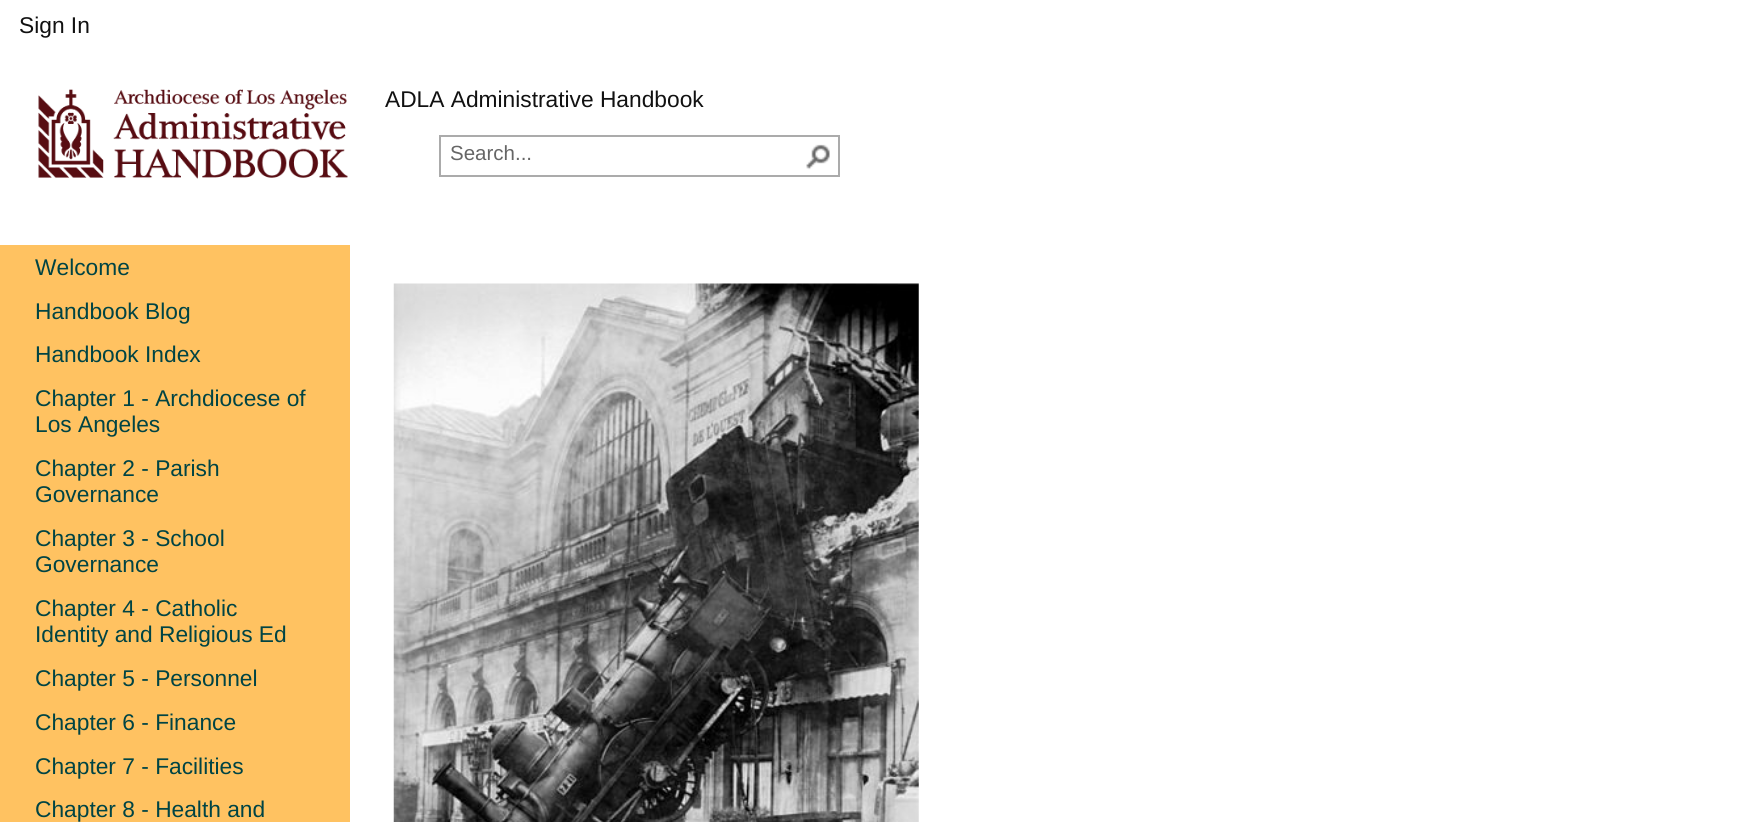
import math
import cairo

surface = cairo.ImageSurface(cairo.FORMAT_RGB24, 1749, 822)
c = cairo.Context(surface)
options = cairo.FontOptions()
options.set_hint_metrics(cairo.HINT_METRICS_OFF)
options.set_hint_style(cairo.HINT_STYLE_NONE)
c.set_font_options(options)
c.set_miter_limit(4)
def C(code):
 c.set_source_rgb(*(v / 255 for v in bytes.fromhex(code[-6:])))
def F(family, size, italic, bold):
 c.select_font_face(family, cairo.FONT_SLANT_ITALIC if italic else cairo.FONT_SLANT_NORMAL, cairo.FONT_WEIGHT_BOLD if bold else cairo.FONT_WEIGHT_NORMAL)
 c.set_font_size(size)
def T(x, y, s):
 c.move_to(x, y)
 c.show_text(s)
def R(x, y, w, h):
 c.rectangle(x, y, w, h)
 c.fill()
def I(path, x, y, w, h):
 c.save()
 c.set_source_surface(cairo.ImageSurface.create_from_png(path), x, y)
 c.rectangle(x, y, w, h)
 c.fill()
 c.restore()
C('ffffff')
c.paint()
F('Liberation Sans',22.75,0,0)
C('111111')
T(19,33,'Sign In')
I('1.png',38,89,310,90)
T(385,107,'ADLA Administrative Handbook')
c.rectangle(440,136,399,40)
C('ababab')
c.stroke()
F('Liberation Sans',20.5,0,0)
C('666666')
T(450,160,'Search...')
I('2.png',806,144,24,26)
C('ffc261')
R(0,245,350,577)
F('Liberation Sans',22.75,0,0)
C('004444')
T(35,275,'Welcome')
T(35,319,'Handbook Blog')
T(35,362,'Handbook Index')
T(35,406,'Chapter 1 - Archdiocese of')
T(35,432,'Los Angeles')
T(35,476,'Chapter 2 - Parish')
T(35,502,'Governance')
T(35,546,'Chapter 3 - School')
T(35,572,'Governance')
T(35,616,'Chapter 4 - Catholic')
T(35,642,'Identity and Religious Ed')
T(35,686,'Chapter 5 - Personnel')
T(35,730,'Chapter 6 - Finance')
T(35,774,'Chapter 7 - Facilities')
T(35,817,'Chapter 8 - Health and')
I('3.png',393,283,526,539)
surface.write_to_png('o.png')
